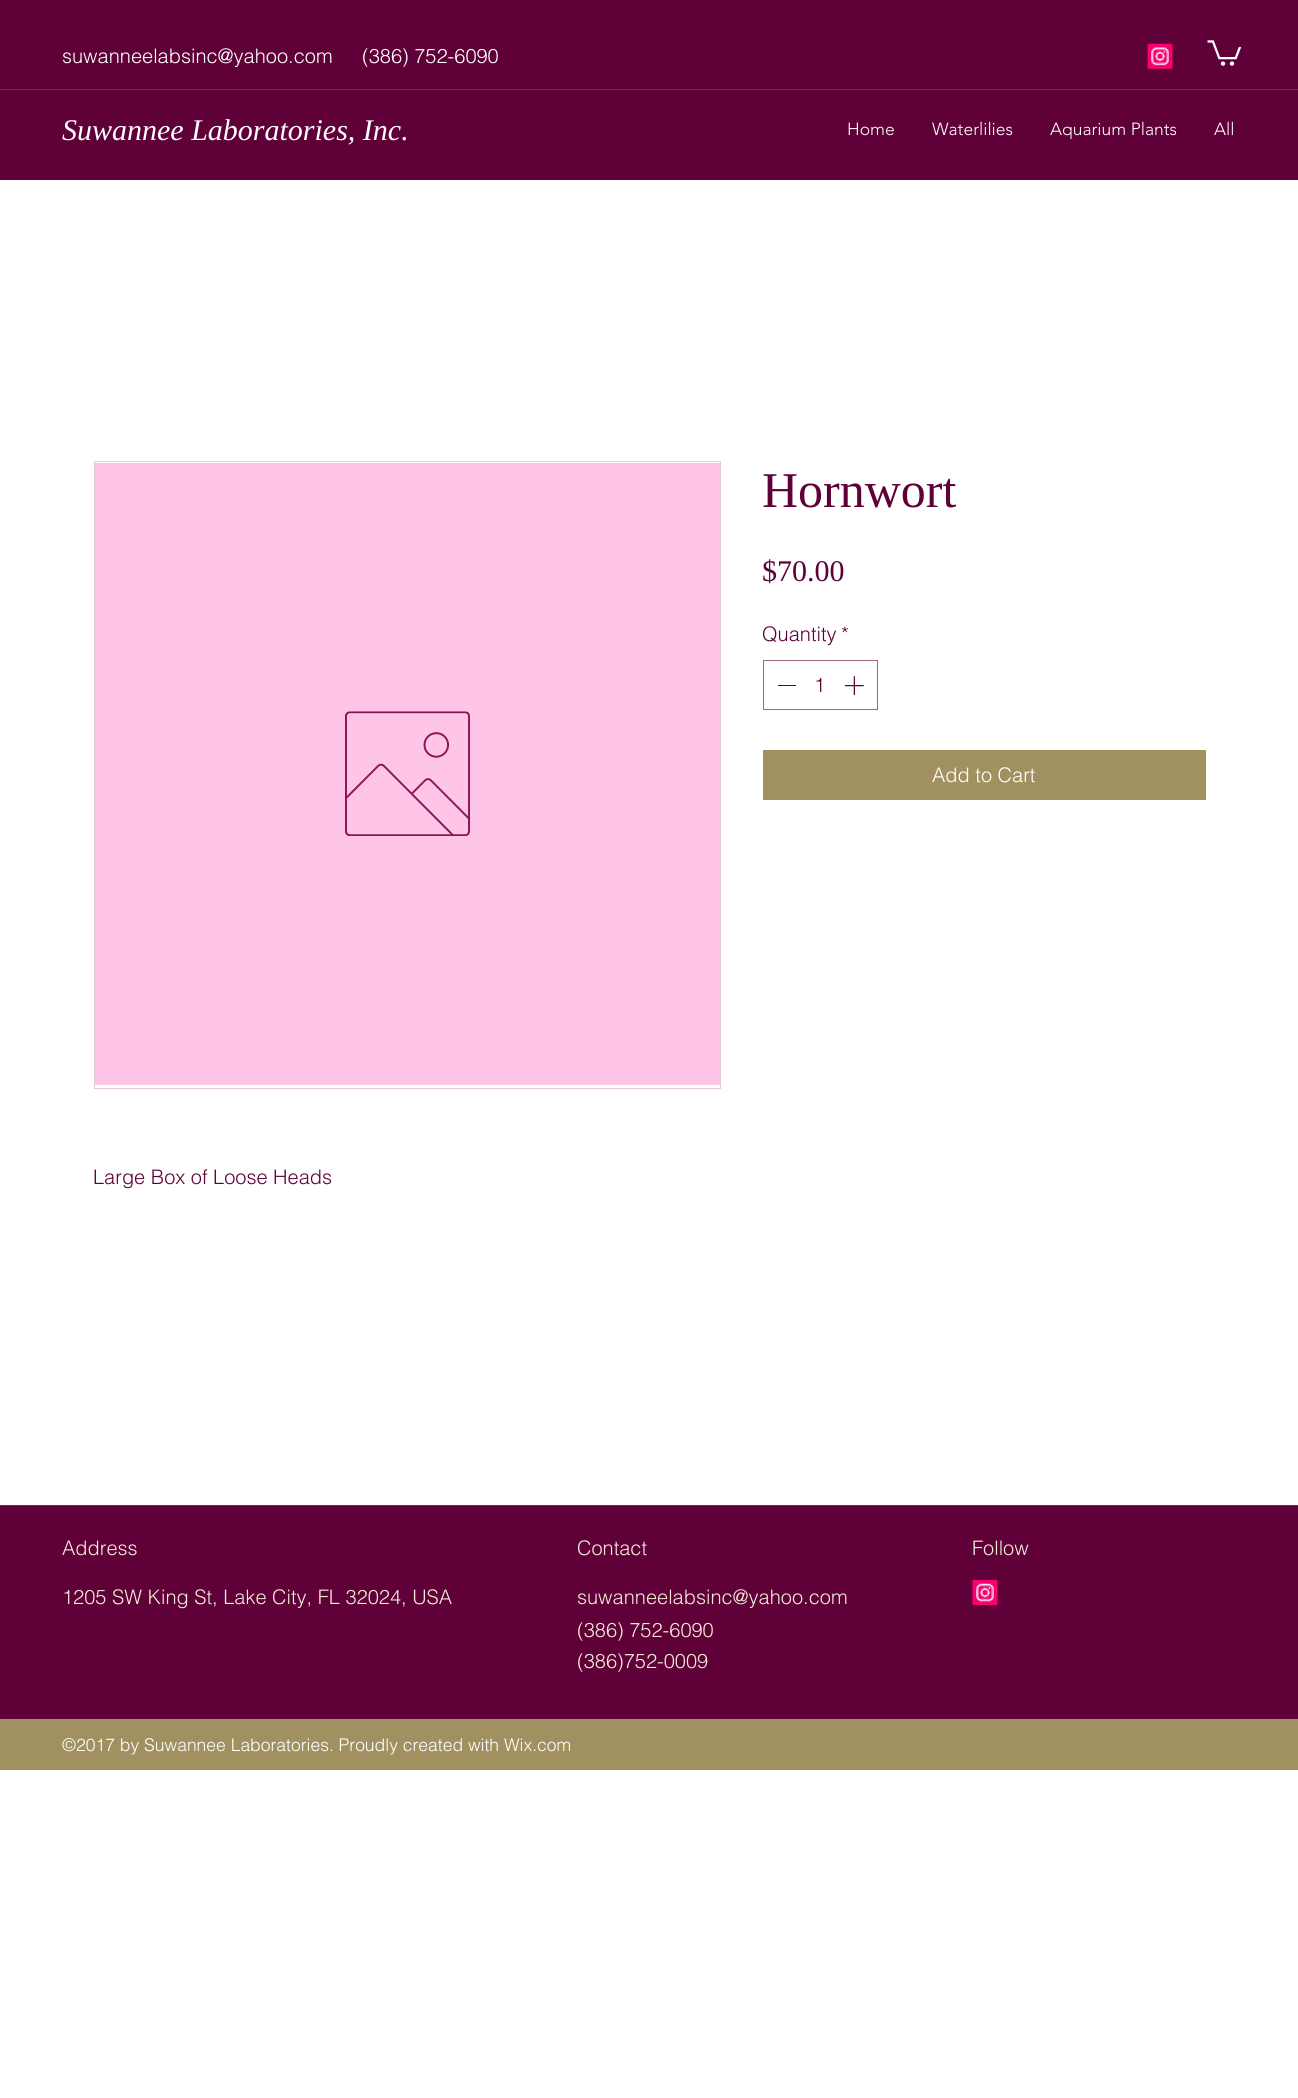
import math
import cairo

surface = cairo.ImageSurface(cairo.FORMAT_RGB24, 1298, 2098)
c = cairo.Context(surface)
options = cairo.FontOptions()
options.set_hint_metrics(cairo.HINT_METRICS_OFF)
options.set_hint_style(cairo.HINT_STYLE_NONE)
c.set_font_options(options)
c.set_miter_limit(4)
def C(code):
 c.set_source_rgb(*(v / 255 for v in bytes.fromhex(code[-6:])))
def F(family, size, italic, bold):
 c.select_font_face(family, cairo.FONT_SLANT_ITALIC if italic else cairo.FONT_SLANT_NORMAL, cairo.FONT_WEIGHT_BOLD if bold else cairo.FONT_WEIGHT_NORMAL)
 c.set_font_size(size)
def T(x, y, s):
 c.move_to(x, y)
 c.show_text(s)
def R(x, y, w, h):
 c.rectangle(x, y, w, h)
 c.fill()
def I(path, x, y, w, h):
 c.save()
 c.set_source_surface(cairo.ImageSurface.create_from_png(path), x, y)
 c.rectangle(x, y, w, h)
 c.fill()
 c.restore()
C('ffffff')
c.paint()
C('5f0038')
R(0,0,1298,180)
F('helvetica Light',20,0,0)
C('ffffff')
T(62,63,'suwanneelabsinc@yahoo.com')
T(362,63,'(386) 752-6090')
I('1.png',1147,43,26,26)
I('2.png',1207,40,35,26)
C('772656')
R(0,89,1298,1)
F('Liberation Serif',30,1,0)
C('ffffff')
T(62,140,'Suwannee Laboratories, Inc.')
F('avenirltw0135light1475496 Light',17.5,0,0)
T(847,135,'Home')
T(932,135,'Waterlilies')
T(1050,135,'Aquarium Plants')
T(1214,135,'All')
F('Liberation Serif',50,0,0)
C('5f0038')
T(762,507,'Hornwort')
F('Liberation Serif',30,0,0)
T(762,581,'$70.00')
F('helvetica Light',20,0,0)
T(762,641,'Quantity')
T(841,641,'*')
c.rectangle(763.5,660.5,114,49)
C('9f6688')
c.set_line_width(1)
c.stroke()
C('5f0038')
R(778,685,18,1)
T(814,692,'1')
I('3.png',845,676,19,19)
C('a29160')
R(763,750,443,50)
C('ffffff')
T(932,782,'Add to Cart')
c.rectangle(94.5,461.5,626,627)
C('dfccd7')
c.stroke()
C('ffc5e6')
R(95,463,625,622)
I('4.png',345,711,125,125)
C('5f0038')
T(93,1184,'Large Box of Loose Heads')
R(0,1506,1298,213)
C('772656')
R(0,1505,1298,1)
C('f3ead5')
T(62,1555,'Address')
T(577,1555,'Contact')
T(972,1555,'Follow')
T(62,1604,'1205 SW King St, Lake City, FL 32024, USA')
T(577,1604,'suwanneelabsinc@yahoo.com')
I('5.png',972,1580,26,25)
T(577,1637,'(386) 752-6090')
T(577,1668,'(386)752-0009')
C('a29160')
R(0,1719,1298,51)
F('helvetica Light',17.5,0,0)
C('ffffff')
T(62,1751,'©2017 by Suwannee Laboratories. Proudly created with Wix.com')
surface.write_to_png('o.png')
